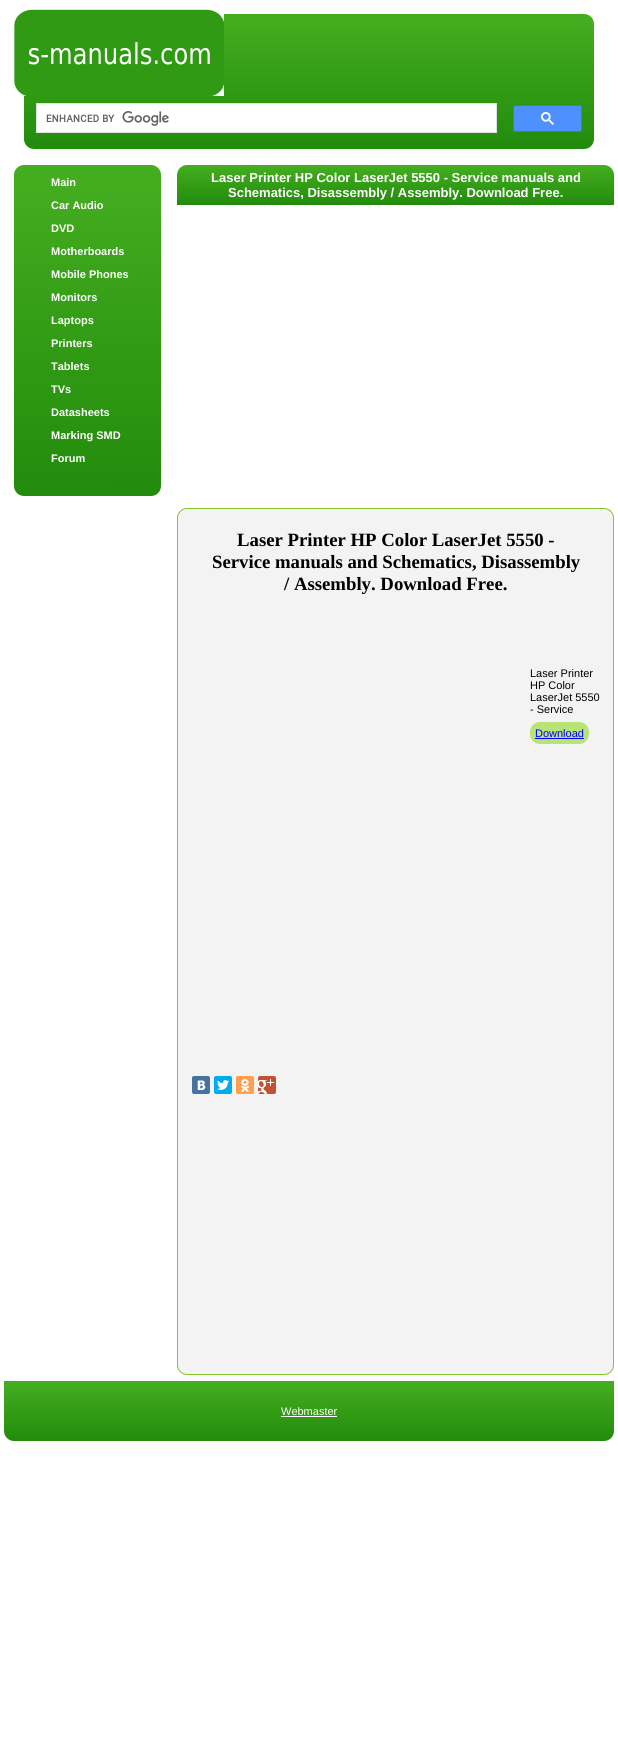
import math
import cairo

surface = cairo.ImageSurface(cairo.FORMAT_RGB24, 618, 1738)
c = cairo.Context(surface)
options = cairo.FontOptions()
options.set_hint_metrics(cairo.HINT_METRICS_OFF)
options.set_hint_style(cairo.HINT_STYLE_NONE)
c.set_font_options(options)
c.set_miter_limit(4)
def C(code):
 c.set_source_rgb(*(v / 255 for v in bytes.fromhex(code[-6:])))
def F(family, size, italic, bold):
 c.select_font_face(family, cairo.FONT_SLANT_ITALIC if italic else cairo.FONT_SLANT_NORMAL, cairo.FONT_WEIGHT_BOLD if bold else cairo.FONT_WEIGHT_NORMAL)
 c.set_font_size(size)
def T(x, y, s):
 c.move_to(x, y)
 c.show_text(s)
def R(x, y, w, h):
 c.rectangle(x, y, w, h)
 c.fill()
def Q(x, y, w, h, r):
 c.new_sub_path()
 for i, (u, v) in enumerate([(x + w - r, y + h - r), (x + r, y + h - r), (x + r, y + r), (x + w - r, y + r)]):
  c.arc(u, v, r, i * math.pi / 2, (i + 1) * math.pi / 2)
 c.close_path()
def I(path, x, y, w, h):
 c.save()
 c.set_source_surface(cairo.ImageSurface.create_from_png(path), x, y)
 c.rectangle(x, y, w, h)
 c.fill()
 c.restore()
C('ffffff')
c.paint()
gradient = cairo.LinearGradient(309,14,309,149)
gradient.add_color_stop_rgba(0,0.271,0.682,0.125,1)
gradient.add_color_stop_rgba(1,0.133,0.545,0.047,1)
c.set_source(gradient)
Q(24,14,570,135,10)
c.fill()
C('ffffff')
R(24,14,200,82)
I('1.png',14,9,210,87)
c.rectangle(36.5,103.5,460,29)
c.fill_preserve()
C('dfe1e5')
c.set_line_width(1)
c.stroke()
I('2.png',46,111,123,15)
C('4d90fe')
Q(513.5,105.5,68,26,1.5)
c.fill_preserve()
C('3079ed')
c.stroke()
I('3.png',541,112,13,13)
gradient = cairo.LinearGradient(87,165,88,496)
gradient.add_color_stop_rgba(0,0.271,0.682,0.125,1)
gradient.add_color_stop_rgba(1,0.133,0.545,0.047,1)
c.set_source(gradient)
Q(14,165,147,331,10)
c.fill()
F('Liberation Sans',11,0,1)
C('ffffff')
T(51,186,'Main')
T(51,209,'Car Audio')
T(51,232,'DVD')
T(51,255,'Motherboards')
T(51,278,'Mobile Phones')
T(51,301,'Monitors')
T(51,324,'Laptops')
T(51,347,'Printers')
T(51,370,'Tablets')
T(51,393,'TVs')
T(51,416,'Datasheets')
T(51,439,'Marking SMD')
T(51,462,'Forum')
gradient = cairo.LinearGradient(396,165,396,205)
gradient.add_color_stop_rgba(0,0.271,0.682,0.125,1)
gradient.add_color_stop_rgba(1,0.133,0.545,0.047,1)
c.set_source(gradient)
c.new_path()
c.move_to(187,165)
c.line_to(604,165)
c.curve_to(609.5,165,614,169.5,614,175)
c.line_to(614,205)
c.line_to(177,205)
c.line_to(177,175)
c.curve_to(177,169.5,181.5,165,187,165)
c.close_path()
c.fill()
F('Liberation Sans',13,0,1)
C('ffffff')
T(211,182,'Laser Printer HP Color LaserJet 5550 - Service manuals and')
T(228,197,'Schematics, Disassembly / Assembly. Download Free.')
C('f3f3f3')
Q(177.5,508.5,436,866,9.5)
c.fill_preserve()
C('86c527')
c.stroke()
F('Liberation Serif',18.75,0,1)
C('000000')
T(237,546,'Laser Printer HP Color LaserJet 5550 -')
T(212,568,'Service manuals and Schematics, Disassembly')
T(284,590,'/ Assembly. Download Free.')
F('Liberation Sans',11,0,0)
T(530,677,'Laser Printer')
T(530,689,'HP Color')
T(530,701,'LaserJet 5550')
T(530,713,'- Service')
C('b8e375')
Q(530,722,59,22,10)
c.fill()
C('0000ff')
T(535,737,'Download')
R(535,738,49,1)
C('48729e')
Q(192,1076,18,18,2)
c.fill()
I('4.png',197,1080,9,10)
C('00aced')
Q(214,1076,18,18,2)
c.fill()
I('5.png',217,1080,12,10)
C('ff9f4d')
Q(236,1076,18,18,2)
c.fill()
I('6.png',241,1079,8,13)
C('c25234')
Q(258,1076,18,18,2)
c.fill()
I('7.png',258,1079,16,15)
gradient = cairo.LinearGradient(309,1381,309,1441)
gradient.add_color_stop_rgba(0,0.271,0.682,0.125,1)
gradient.add_color_stop_rgba(1,0.133,0.545,0.047,1)
c.set_source(gradient)
c.new_path()
c.move_to(4,1381)
c.line_to(614,1381)
c.line_to(614,1431)
c.curve_to(614,1436.5,609.5,1441,604,1441)
c.line_to(14,1441)
c.curve_to(8.5,1441,4,1436.5,4,1431)
c.close_path()
c.fill()
C('ffffff')
T(281,1415,'Webmaster')
R(281,1416,56,1)
surface.write_to_png('o.png')
